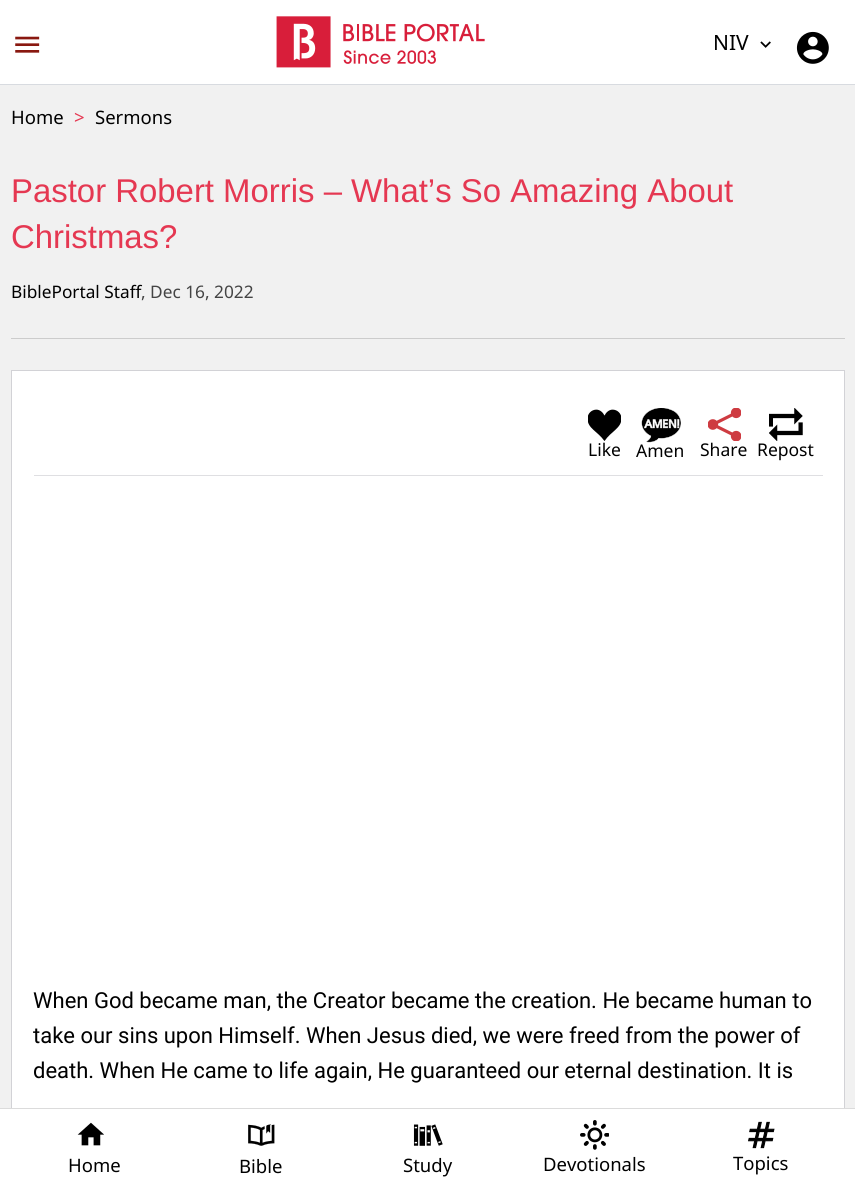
import math
import cairo

surface = cairo.ImageSurface(cairo.FORMAT_RGB24, 855, 1190)
c = cairo.Context(surface)
options = cairo.FontOptions()
options.set_hint_metrics(cairo.HINT_METRICS_OFF)
options.set_hint_style(cairo.HINT_STYLE_NONE)
c.set_font_options(options)
c.set_miter_limit(4)
def C(code):
 c.set_source_rgb(*(v / 255 for v in bytes.fromhex(code[-6:])))
def F(family, size, italic, bold):
 c.select_font_face(family, cairo.FONT_SLANT_ITALIC if italic else cairo.FONT_SLANT_NORMAL, cairo.FONT_WEIGHT_BOLD if bold else cairo.FONT_WEIGHT_NORMAL)
 c.set_font_size(size)
def T(x, y, s):
 c.move_to(x, y)
 c.show_text(s)
def R(x, y, w, h):
 c.rectangle(x, y, w, h)
 c.fill()
def I(path, x, y, w, h):
 c.save()
 c.set_source_surface(cairo.ImageSurface.create_from_png(path), x, y)
 c.rectangle(x, y, w, h)
 c.fill()
 c.restore()
C('f1f1f1')
c.paint()
C('ffffff')
R(0,0,855,84)
C('d8dbe0')
R(0,84,855,1)
I('1.png',15,36,25,17)
I('2.png',276,16,209,52)
F('Noto Sans',21,0,0)
C('000000')
T(713,50,'NIV')
I('3.png',760,41,11,7)
I('4.png',796,31,33,33)
F('Noto Sans',18.5,0,0)
T(11,124,'Home')
C('e53852')
T(74,124,'>')
C('000000')
T(95,124,'Sermons')
C('cccccc')
R(11,338,834,1)
F('Liberation Sans',32.9,0,0)
C('e53852')
T(11,202,'Pastor Robert Morris – What’s So Amazing About')
T(11,248,'Christmas?')
F('Noto Sans',17.25,0,0)
C('000000')
T(11,298,'BiblePortal Staff')
C('444444')
T(141,298,', Dec 16, 2022')
C('ffffff')
R(12,371,832,737)
c.rectangle(11.5,370.5,833,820)
C('d2d2d6')
c.set_line_width(1)
c.stroke()
C('dfdfe2')
R(34,475,789,1)
I('5.png',588,409,33,32)
F('Noto Sans',17.5,0,0)
C('000000')
T(588,456,'Like')
I('6.png',641,408,40,35)
T(636,457,'Amen')
I('7.png',708,408,33,33)
T(700,456,'Share')
I('8.png',769,408,34,33)
T(757,456,'Repost')
F('Roboto',22,0,0)
T(33,1008,'When God became man, the Creator became the creation. He became human to')
T(33,1043,'take our sins upon Himself. When Jesus died, we were freed from the power of')
T(33,1078,'death. When He came to life again, He guaranteed our eternal destination. It is')
C('ffffff')
R(0,1109,855,81)
C('dbdbdb')
R(0,1108,855,1)
I('9.png',77,1122,27,24)
F('Noto Sans',18.5,0,0)
C('000000')
T(68,1172,'Home')
I('10.png',248,1124,27,22)
T(239,1173,'Bible')
I('11.png',413,1124,30,22)
T(403,1172,'Study')
I('12.png',580,1120,29,30)
T(543,1171,'Devotionals')
I('13.png',748,1121,27,28)
T(733,1170,'Topics')
surface.write_to_png('o.png')
